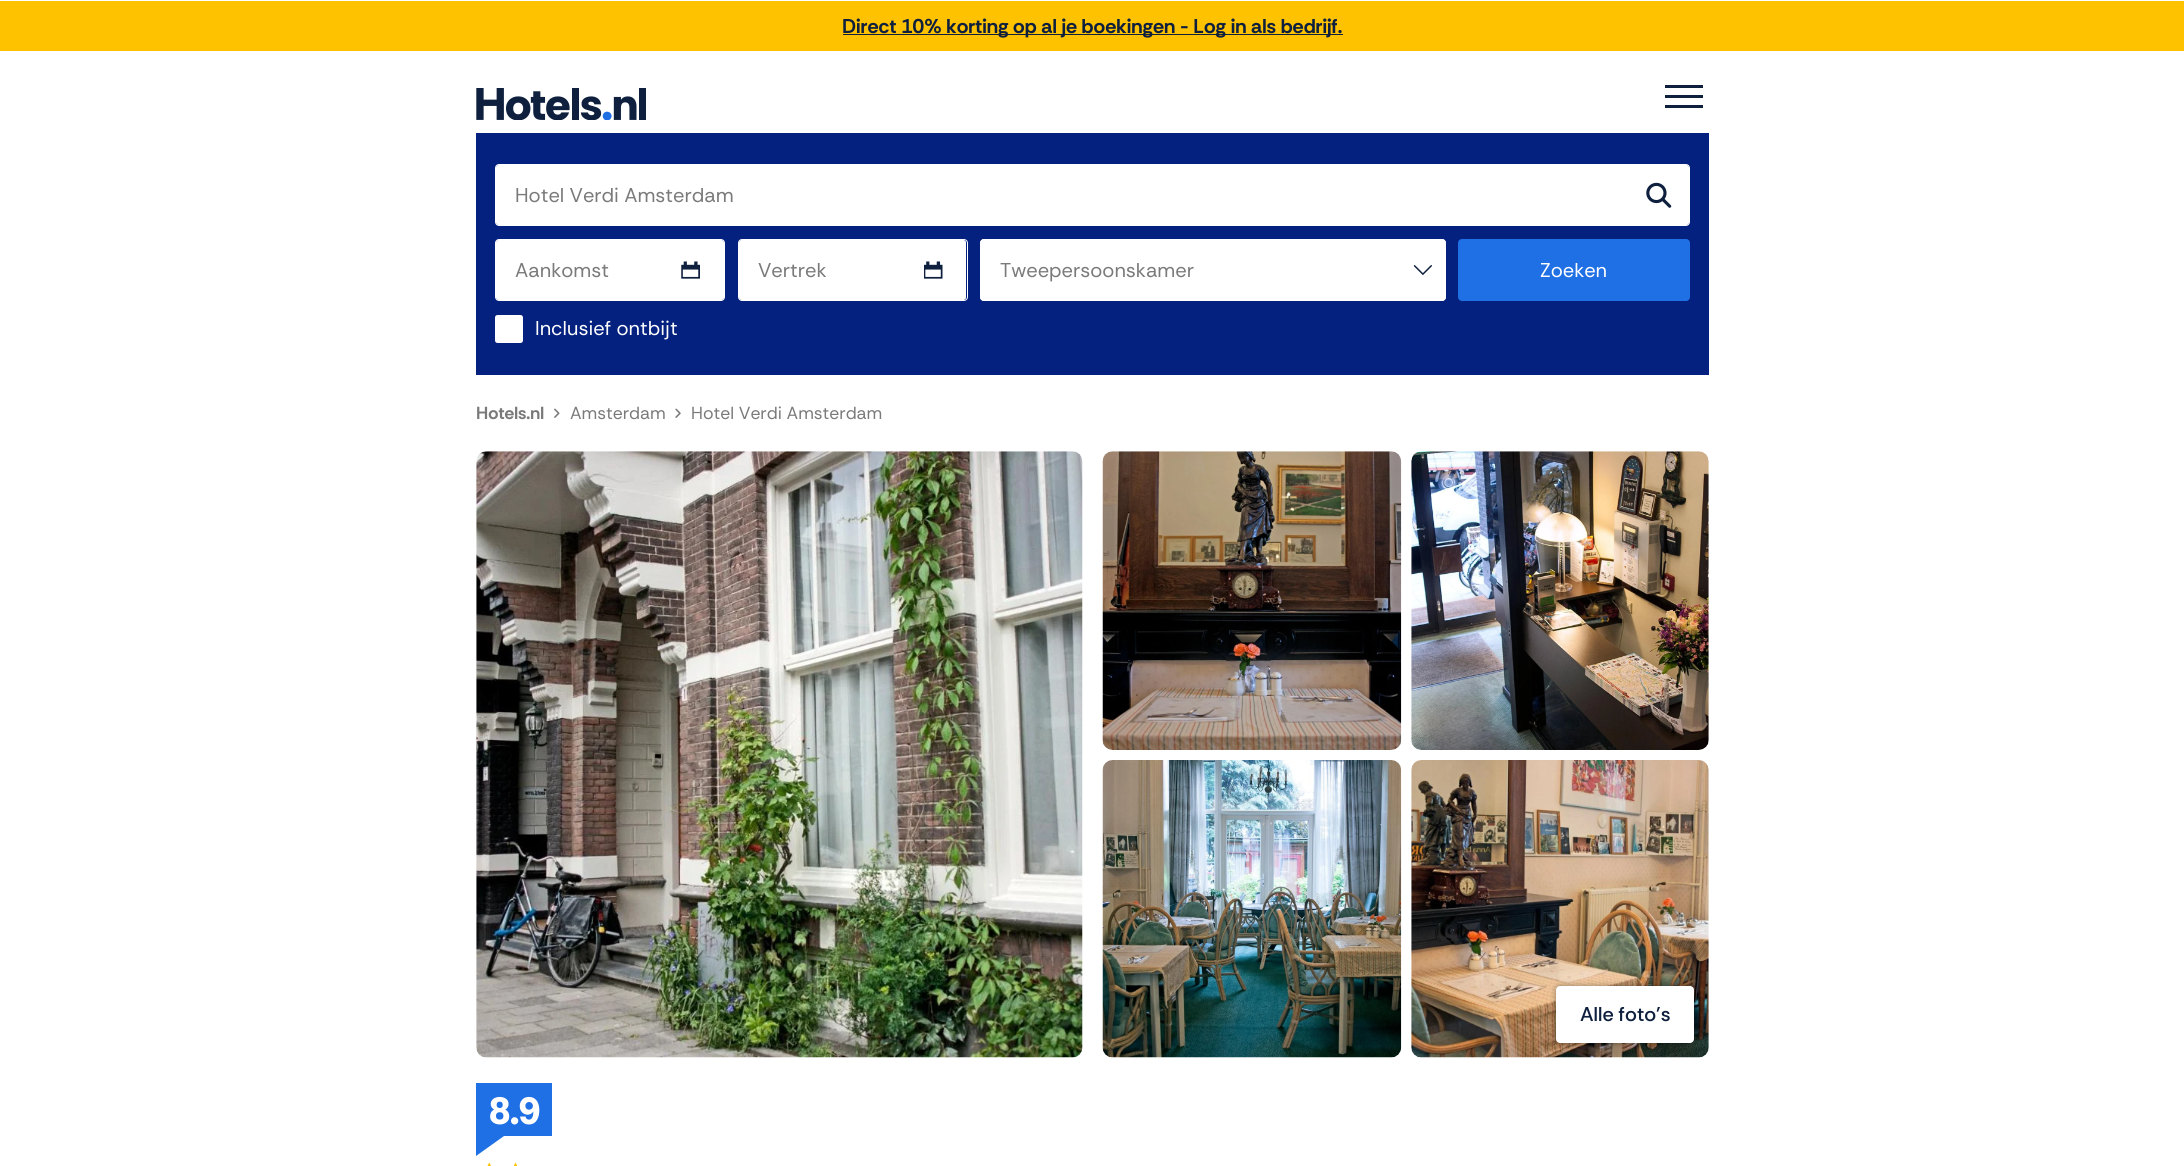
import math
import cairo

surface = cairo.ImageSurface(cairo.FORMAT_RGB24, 2184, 1166)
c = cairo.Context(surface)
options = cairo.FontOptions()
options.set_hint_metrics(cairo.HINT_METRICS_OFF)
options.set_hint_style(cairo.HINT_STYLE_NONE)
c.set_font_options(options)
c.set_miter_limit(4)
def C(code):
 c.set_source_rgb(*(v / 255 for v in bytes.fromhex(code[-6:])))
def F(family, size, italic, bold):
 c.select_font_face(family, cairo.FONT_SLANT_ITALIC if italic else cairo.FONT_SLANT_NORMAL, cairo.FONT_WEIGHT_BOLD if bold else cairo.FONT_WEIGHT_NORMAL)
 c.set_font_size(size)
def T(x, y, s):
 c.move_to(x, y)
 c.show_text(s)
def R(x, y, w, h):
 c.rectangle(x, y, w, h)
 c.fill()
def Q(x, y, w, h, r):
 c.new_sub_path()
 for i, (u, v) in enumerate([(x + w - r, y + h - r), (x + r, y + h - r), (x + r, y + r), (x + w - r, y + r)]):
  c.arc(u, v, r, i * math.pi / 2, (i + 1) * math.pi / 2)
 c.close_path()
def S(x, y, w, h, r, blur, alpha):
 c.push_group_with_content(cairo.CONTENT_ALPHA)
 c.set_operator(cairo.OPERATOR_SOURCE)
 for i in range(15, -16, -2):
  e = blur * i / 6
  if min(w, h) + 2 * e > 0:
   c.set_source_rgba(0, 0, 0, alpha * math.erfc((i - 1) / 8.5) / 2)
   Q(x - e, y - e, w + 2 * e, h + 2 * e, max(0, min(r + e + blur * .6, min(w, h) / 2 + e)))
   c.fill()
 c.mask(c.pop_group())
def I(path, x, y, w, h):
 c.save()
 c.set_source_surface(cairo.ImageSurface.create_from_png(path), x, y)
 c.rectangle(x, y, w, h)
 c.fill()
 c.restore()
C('ffffff')
c.paint()
C('ffc200')
R(0,1,2184,50)
C('0e203e')
R(843,34,500,1)
F('Rethink Sans',20,0,1)
T(842,33,'Direct 10% korting op al je boekingen - Log in als bedrijf.')
I('1.png',476,88,170,32)
R(1665,95,38,3)
R(1665,85,38,3)
R(1665,105,38,3)
C('04217f')
R(476,133,1233,242)
C('ffffff')
Q(496,165,1193,60,2.5)
c.fill()
Q(495.5,164.5,1194,61,3.5)
c.set_line_width(1)
c.stroke()
F('Rethink Sans',20,0,0)
C('7a7a7a')
T(515,202,'Hotel Verdi Amsterdam')
I('2.png',1646,182,26,26)
C('ffffff')
Q(496,240,228,60,2.5)
c.fill()
Q(495.5,239.5,229,61,3.5)
c.stroke()
C('7a7a7a')
T(515,277,'Aankomst')
I('3.png',681,261,19,18)
C('ffffff')
Q(739,240,227,60,2.5)
c.fill()
Q(738.5,239.5,229,61,3.5)
c.stroke()
C('7a7a7a')
T(758,277,'Vertrek')
I('4.png',924,261,19,18)
C('ffffff')
Q(980,239,466,62,4)
c.fill()
I('5.png',1414,265,18,11)
Q(980.5,239.5,465,61,3.5)
c.stroke()
C('7a7a7a')
T(1000,277,'Tweepersoonskamer')
C('1f6fe5')
Q(1458.5,239.5,231,61,3.5)
c.fill_preserve()
c.stroke()
C('ffffff')
T(1540,277,'Zoeken')
Q(495,315,28,28,2.5)
c.fill()
T(535,335,'Inclusief ontbijt')
F('Rethink Sans',17.5,0,1)
C('7a7a7a')
T(476,419,'Hotels.nl')
I('6.png',554,408,6,10)
F('Rethink Sans',17.5,0,0)
T(570,419,'Amsterdam')
I('7.png',675,408,6,10)
T(691,419,'Hotel Verdi Amsterdam')
I('8.png',476,451,607,607)
I('9.png',1102,451,300,299)
I('10.png',1411,451,298,299)
I('11.png',1102,760,300,298)
I('12.png',1411,760,298,298)
C('000000')
S(1556,986,138,57,4,3,.4)
C('ffffff')
Q(1556,986,138,57,4)
c.fill()
F('Rethink Sans Medium',20,0,0)
C('0e203e')
T(1580,1021,'Alle foto\'s')
C('1f6fe5')
c.new_path()
c.move_to(552,1083)
c.line_to(476,1083)
c.line_to(476,1156)
c.line_to(504,1136)
c.line_to(552,1136)
c.close_path()
c.fill()
F('Rethink Sans ExtraBold',38,0,0)
C('ffffff')
T(489,1124,'8.9')
I('13.png',487,1162,4,4)
I('14.png',513,1162,5,4)
surface.write_to_png('o.png')
